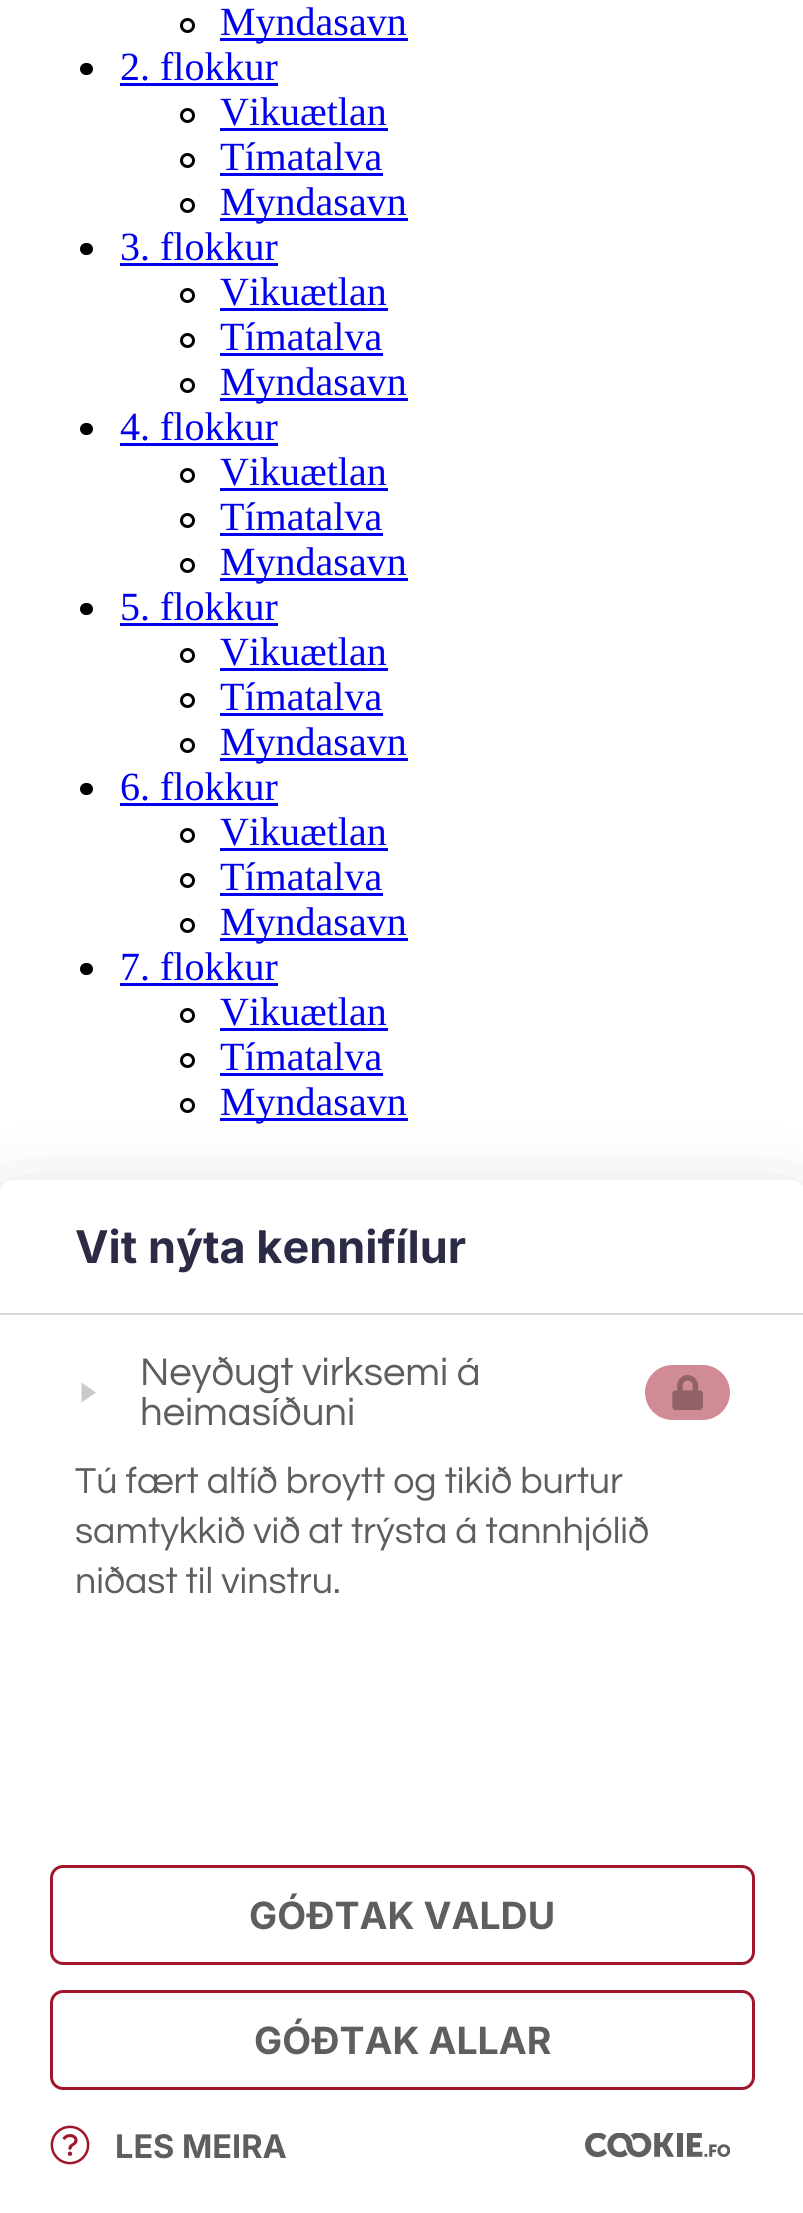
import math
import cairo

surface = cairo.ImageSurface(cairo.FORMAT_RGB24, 803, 2213)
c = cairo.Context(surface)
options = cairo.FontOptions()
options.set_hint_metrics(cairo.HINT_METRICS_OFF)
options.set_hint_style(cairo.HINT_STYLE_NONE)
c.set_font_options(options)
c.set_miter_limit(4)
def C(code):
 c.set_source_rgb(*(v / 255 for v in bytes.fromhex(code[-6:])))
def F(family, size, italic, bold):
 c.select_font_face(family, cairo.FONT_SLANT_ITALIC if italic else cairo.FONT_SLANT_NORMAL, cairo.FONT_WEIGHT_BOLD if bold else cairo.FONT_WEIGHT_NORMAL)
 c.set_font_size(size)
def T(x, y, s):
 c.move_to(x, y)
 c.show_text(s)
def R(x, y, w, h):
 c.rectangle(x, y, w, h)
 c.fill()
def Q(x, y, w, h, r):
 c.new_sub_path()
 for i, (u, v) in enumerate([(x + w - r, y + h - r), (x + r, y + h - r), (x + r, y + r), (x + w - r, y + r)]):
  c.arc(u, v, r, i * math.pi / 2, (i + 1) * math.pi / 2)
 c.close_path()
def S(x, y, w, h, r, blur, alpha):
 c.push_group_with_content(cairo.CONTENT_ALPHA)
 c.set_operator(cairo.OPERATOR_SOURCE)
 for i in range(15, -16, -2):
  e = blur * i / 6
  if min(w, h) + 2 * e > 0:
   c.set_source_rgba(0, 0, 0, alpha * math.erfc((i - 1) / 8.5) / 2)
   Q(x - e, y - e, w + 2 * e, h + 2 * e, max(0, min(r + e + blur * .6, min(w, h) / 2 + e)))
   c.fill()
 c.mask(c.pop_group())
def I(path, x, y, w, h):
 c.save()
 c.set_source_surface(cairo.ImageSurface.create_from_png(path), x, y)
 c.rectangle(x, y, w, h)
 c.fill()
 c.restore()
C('ffffff')
c.paint()
c.arc(187.5,25.5,6,0,2 * math.pi)
C('000000')
c.set_line_width(3)
c.stroke()
C('0000ee')
R(220,38,188,3)
F('Liberation Serif',40,0,0)
T(220,35,'Myndasavn')
C('000000')
Q(80,63,13,12,6)
c.fill()
C('0000ee')
T(120,80,'2. flokkur')
R(120,83,158,3)
c.new_path()
c.arc(187.5,115.5,6,0,2 * math.pi)
C('000000')
c.stroke()
C('0000ee')
T(220,125,'Vikuætlan')
R(220,128,168,3)
c.new_path()
c.arc(187.5,160.5,6,0,2 * math.pi)
C('000000')
c.stroke()
C('0000ee')
T(220,170,'Tímatalva')
R(220,173,163,3)
c.new_path()
c.arc(187.5,205.5,6,0,2 * math.pi)
C('000000')
c.stroke()
C('0000ee')
R(220,218,188,3)
T(220,215,'Myndasavn')
C('000000')
Q(80,243,13,12,6)
c.fill()
C('0000ee')
T(120,260,'3. flokkur')
R(120,263,158,3)
c.new_path()
c.arc(187.5,295.5,6,0,2 * math.pi)
C('000000')
c.stroke()
C('0000ee')
T(220,305,'Vikuætlan')
R(220,308,168,3)
c.new_path()
c.arc(187.5,340.5,6,0,2 * math.pi)
C('000000')
c.stroke()
C('0000ee')
T(220,350,'Tímatalva')
R(220,353,163,3)
c.new_path()
c.arc(187.5,385.5,6,0,2 * math.pi)
C('000000')
c.stroke()
C('0000ee')
R(220,398,188,3)
T(220,395,'Myndasavn')
C('000000')
Q(80,423,13,12,6)
c.fill()
C('0000ee')
T(120,440,'4. flokkur')
R(120,443,158,3)
c.new_path()
c.arc(187.5,475.5,6,0,2 * math.pi)
C('000000')
c.stroke()
C('0000ee')
T(220,485,'Vikuætlan')
R(220,488,168,3)
c.new_path()
c.arc(187.5,520.5,6,0,2 * math.pi)
C('000000')
c.stroke()
C('0000ee')
T(220,530,'Tímatalva')
R(220,533,163,3)
c.new_path()
c.arc(187.5,565.5,6,0,2 * math.pi)
C('000000')
c.stroke()
C('0000ee')
R(220,578,188,3)
T(220,575,'Myndasavn')
C('000000')
Q(80,603,13,12,6)
c.fill()
C('0000ee')
T(120,620,'5. flokkur')
R(120,623,158,3)
c.new_path()
c.arc(187.5,655.5,6,0,2 * math.pi)
C('000000')
c.stroke()
C('0000ee')
T(220,665,'Vikuætlan')
R(220,668,168,3)
c.new_path()
c.arc(187.5,700.5,6,0,2 * math.pi)
C('000000')
c.stroke()
C('0000ee')
T(220,710,'Tímatalva')
R(220,713,163,3)
c.new_path()
c.arc(187.5,745.5,6,0,2 * math.pi)
C('000000')
c.stroke()
C('0000ee')
R(220,758,188,3)
T(220,755,'Myndasavn')
C('000000')
Q(80,783,13,12,6)
c.fill()
C('0000ee')
T(120,800,'6. flokkur')
R(120,803,158,3)
c.new_path()
c.arc(187.5,835.5,6,0,2 * math.pi)
C('000000')
c.stroke()
C('0000ee')
T(220,845,'Vikuætlan')
R(220,848,168,3)
c.new_path()
c.arc(187.5,880.5,6,0,2 * math.pi)
C('000000')
c.stroke()
C('0000ee')
T(220,890,'Tímatalva')
R(220,893,163,3)
c.new_path()
c.arc(187.5,925.5,6,0,2 * math.pi)
C('000000')
c.stroke()
C('0000ee')
R(220,938,188,3)
T(220,935,'Myndasavn')
C('000000')
Q(80,963,13,12,6)
c.fill()
C('0000ee')
T(120,980,'7. flokkur')
R(120,983,158,3)
c.new_path()
c.arc(187.5,1015.5,6,0,2 * math.pi)
C('000000')
c.stroke()
C('0000ee')
T(220,1025,'Vikuætlan')
R(220,1028,168,3)
c.new_path()
c.arc(187.5,1060.5,6,0,2 * math.pi)
C('000000')
c.stroke()
C('0000ee')
T(220,1070,'Tímatalva')
R(220,1073,163,3)
c.new_path()
c.arc(187.5,1105.5,6,0,2 * math.pi)
C('000000')
c.stroke()
C('0000ee')
R(220,1118,188,3)
T(220,1115,'Myndasavn')
C('000000')
S(0,1228,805,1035,13,47.5,.3)
C('ffffff')
c.new_path()
c.move_to(13,1180)
c.line_to(792,1180)
c.curve_to(799,1180,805,1186,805,1193)
c.line_to(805,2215)
c.line_to(0,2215)
c.line_to(0,1193)
c.curve_to(0,1186,6,1180,13,1180)
c.close_path()
c.fill()
C('d9d9d9')
R(0,1313,803,2)
F('Inter',45,0,1)
C('2b2b46')
T(75,1263,'Vit nýta kennifílur')
C('cacaca')
c.new_path()
c.move_to(81.5,1382.5)
c.line_to(96,1392.5)
c.line_to(81.5,1402.5)
c.close_path()
c.fill()
F('Questrial',40,0,0)
C('5e5e5e')
T(140,1385,'Neyðugt virksemi á')
T(140,1425,'heimasíðuni')
C('d08b95')
Q(645,1365,85,55,27.5)
c.fill()
I('1.png',672,1375,31,35)
F('Questrial',37.5,0,0)
C('5e5e5e')
T(75,1493,'Tú fært altíð broytt og tikið burtur')
T(75,1543,'samtykkið við at trýsta á tannhjólið')
T(75,1593,'niðast til vinstru.')
Q(51.5,1866.5,702,97,11.5)
C('a0162b')
c.stroke()
F('Inter',37.5,0,1)
C('5e5e5e')
T(249,1929,'GÓÐTAK VALDU')
Q(51.5,1991.5,702,97,11.5)
C('a0162b')
c.stroke()
C('5e5e5e')
T(254,2054,'GÓÐTAK ALLAR')
I('2.png',50,2125,40,40)
F('Inter',32.5,0,1)
T(115,2158,'LES MEIRA')
I('3.png',585,2133,145,25)
surface.write_to_png('o.png')
